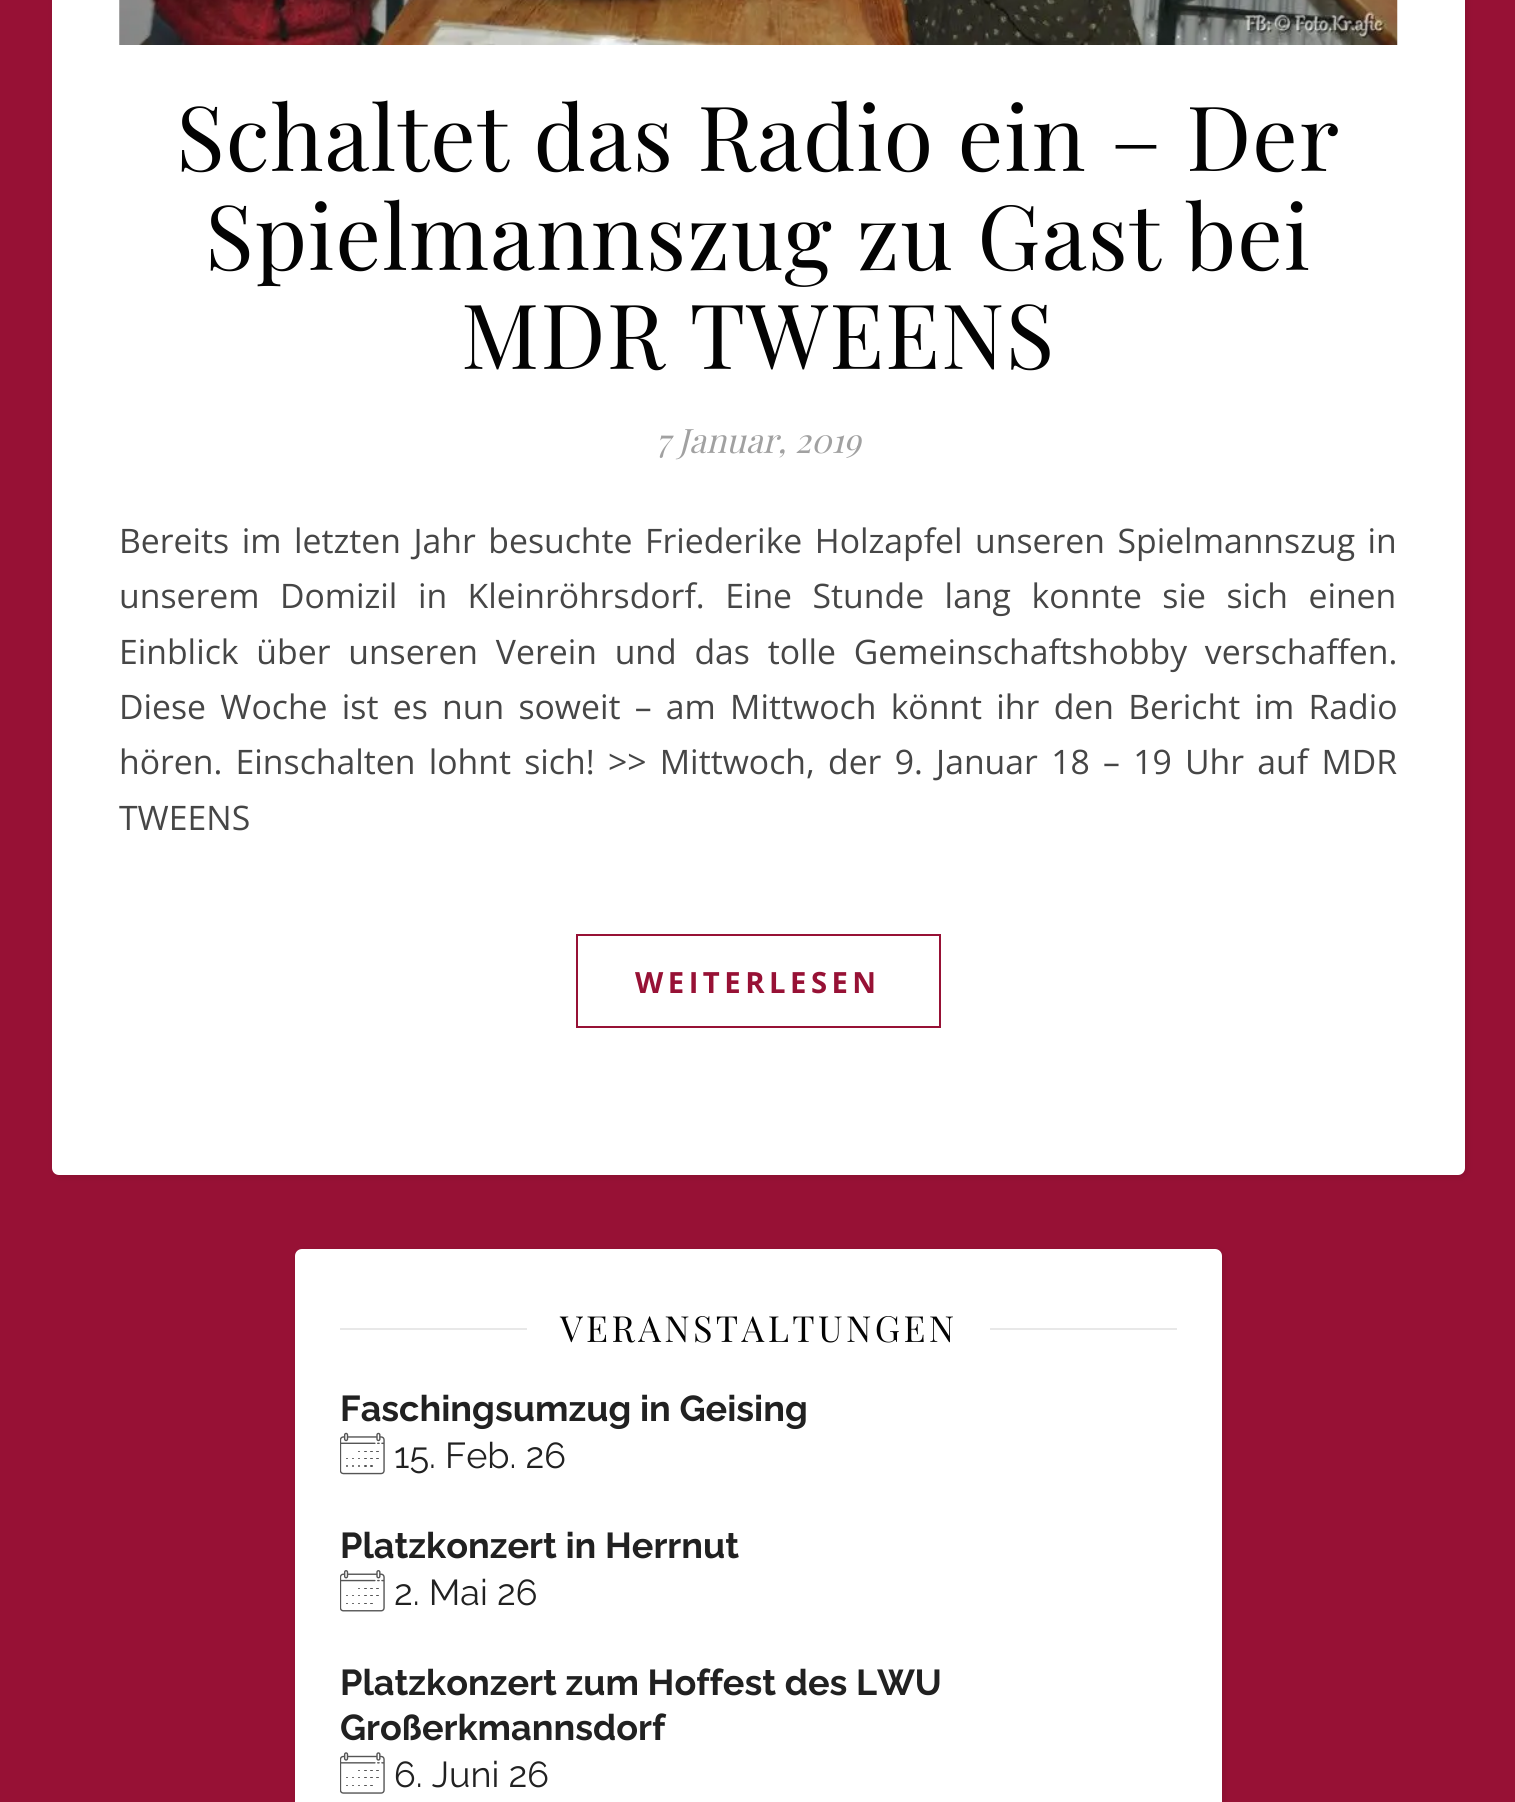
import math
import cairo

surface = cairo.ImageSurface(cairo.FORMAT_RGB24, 1515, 1802)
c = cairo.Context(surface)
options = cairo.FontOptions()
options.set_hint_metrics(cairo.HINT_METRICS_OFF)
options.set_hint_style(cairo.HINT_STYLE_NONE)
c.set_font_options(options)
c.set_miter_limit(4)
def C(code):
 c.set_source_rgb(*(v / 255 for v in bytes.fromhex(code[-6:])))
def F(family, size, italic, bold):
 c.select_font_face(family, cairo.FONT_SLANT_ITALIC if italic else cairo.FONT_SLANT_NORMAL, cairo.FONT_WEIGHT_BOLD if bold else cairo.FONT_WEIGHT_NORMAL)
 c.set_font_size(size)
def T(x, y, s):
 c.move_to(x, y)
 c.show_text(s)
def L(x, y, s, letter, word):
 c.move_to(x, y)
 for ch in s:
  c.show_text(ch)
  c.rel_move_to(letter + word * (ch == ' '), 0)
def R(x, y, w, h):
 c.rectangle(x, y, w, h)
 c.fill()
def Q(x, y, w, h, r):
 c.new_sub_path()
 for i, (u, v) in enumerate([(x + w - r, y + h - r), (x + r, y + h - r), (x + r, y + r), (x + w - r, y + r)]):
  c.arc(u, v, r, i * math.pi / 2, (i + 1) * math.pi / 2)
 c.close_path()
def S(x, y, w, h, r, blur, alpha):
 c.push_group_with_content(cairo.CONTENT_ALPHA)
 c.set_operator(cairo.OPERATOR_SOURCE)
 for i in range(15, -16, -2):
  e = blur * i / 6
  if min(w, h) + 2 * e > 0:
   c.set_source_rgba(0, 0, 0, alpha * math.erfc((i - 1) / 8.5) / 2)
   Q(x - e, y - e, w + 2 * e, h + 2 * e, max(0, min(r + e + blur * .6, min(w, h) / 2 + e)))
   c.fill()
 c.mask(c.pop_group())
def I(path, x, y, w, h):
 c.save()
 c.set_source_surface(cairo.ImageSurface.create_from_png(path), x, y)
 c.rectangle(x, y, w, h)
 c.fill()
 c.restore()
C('971135')
c.paint()
C('000000')
S(54,-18,1413,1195,7,3.5,.1)
C('ffffff')
Q(52,-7,1413,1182,7)
c.fill()
I('1.png',119,0,1279,45)
F('Playfair Display',90,0,0)
C('030303')
L(176,171,'Schaltet das Radio ein – Der',1.1,0)
L(205,270,'Spielmannszug zu Gast bei',1.1,0)
L(461,369,'MDR TWEENS',1.1,0)
F('Playfair Display',33.75,1,0)
C('a1a1a1')
T(656,453,'7 Januar, 2019')
F('Open Sans',33.75,0,0)
C('464646')
L(119,553,'Bereits im letzten Jahr besuchte Friederike Holzapfel unseren Spielmannszug in',0,3.75)
L(119,608,'unserem Domizil in Kleinröhrsdorf. Eine Stunde lang konnte sie sich einen',0,11.75)
L(119,664,'Einblick über unseren Verein und das tolle Gemeinschaftshobby verschaffen.',0,9)
L(119,719,'Diese Woche ist es nun soweit – am Mittwoch könnt ihr den Bericht im Radio',0,5.5)
L(119,774,'hören. Einschalten lohnt sich! >> Mittwoch, der 9. Januar 18 – 19 Uhr auf MDR',0,4.5)
T(119,830,'TWEENS')
c.rectangle(577,935,363,92)
C('971135')
c.stroke()
F('Open Sans',29.25,0,1)
L(635,993,'WEITERLESEN',4.5,0)
C('000000')
S(297,1251,927,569,7,3.5,.1)
C('ffffff')
Q(295,1249,927,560,7)
c.fill()
C('e8e8e8')
R(340,1328,187,2)
F('Playfair Display',36,0,0)
C('030303')
L(560,1342,'VERANSTALTUNGEN',3.4,0)
C('e8e8e8')
R(990,1328,187,2)
F('Raleway',36,0,1)
C('212121')
T(340,1421,'Faschingsumzug in Geising')
I('2.png',340,1432,45,43)
F('Raleway',36,0,0)
T(394,1468,'15. Feb. 26')
F('Raleway',36,0,1)
T(340,1558,'Platzkonzert in Herrnut')
I('3.png',340,1570,45,42)
F('Raleway',36,0,0)
T(394,1605,'2. Mai 26')
F('Raleway',36,0,1)
T(340,1695,'Platzkonzert zum Hoffest des LWU')
T(340,1740,'Großerkmannsdorf')
I('4.png',340,1752,45,42)
F('Raleway',36,0,0)
T(394,1787,'6. Juni 26')
surface.write_to_png('o.png')
